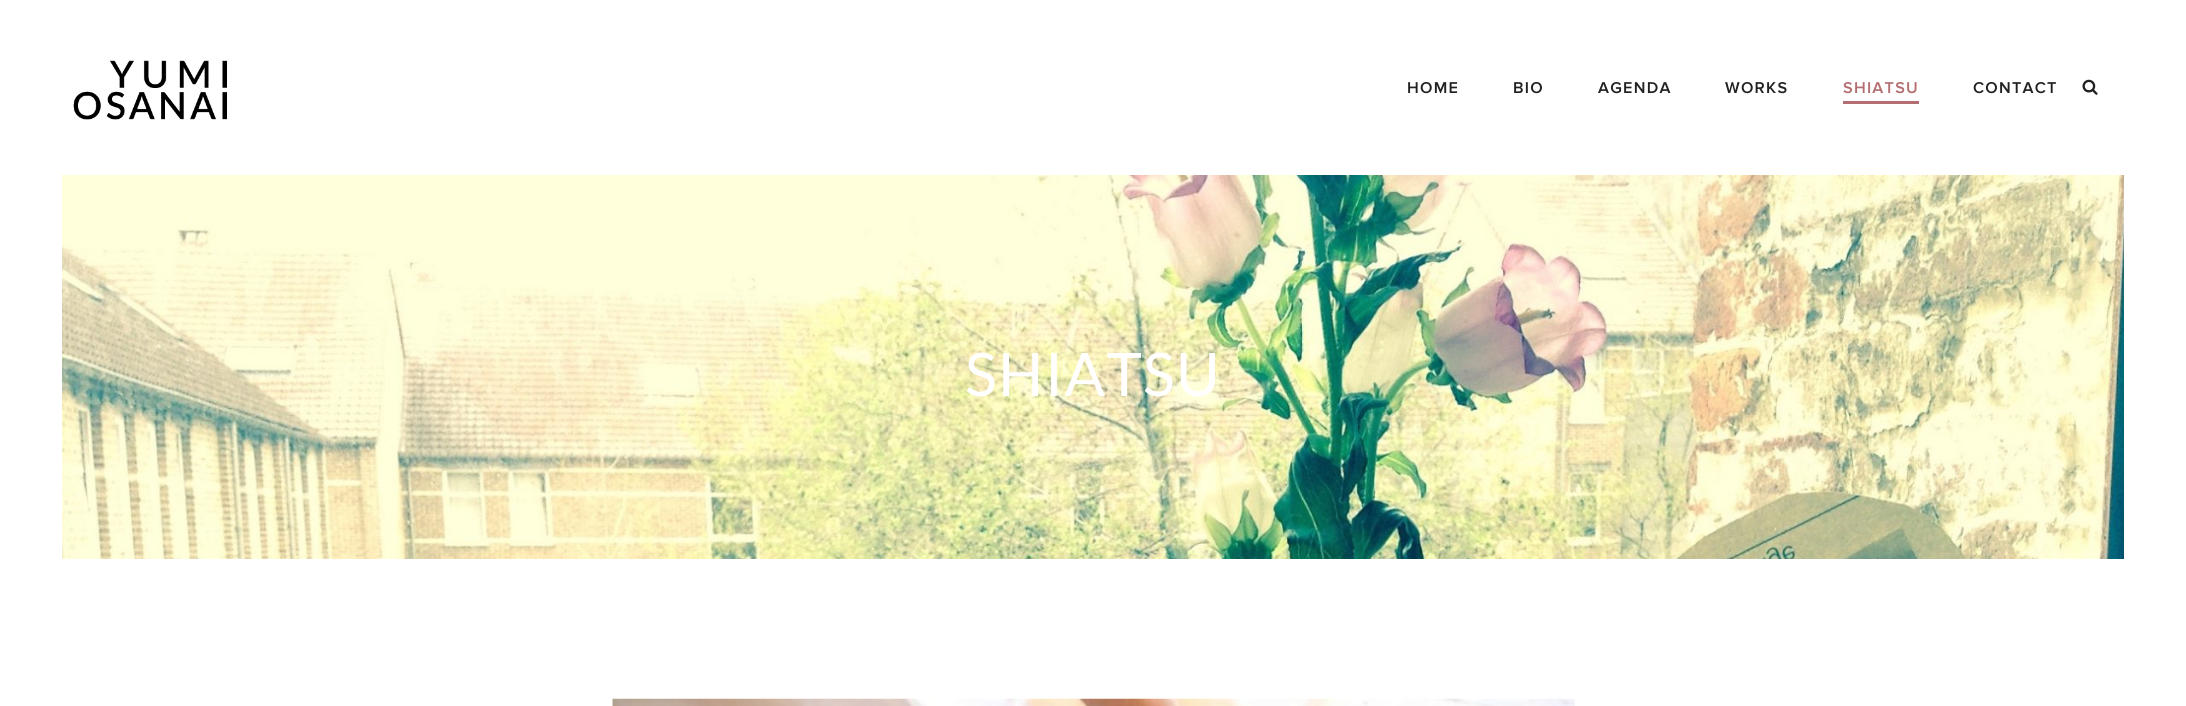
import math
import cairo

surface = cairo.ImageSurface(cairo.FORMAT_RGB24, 2186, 706)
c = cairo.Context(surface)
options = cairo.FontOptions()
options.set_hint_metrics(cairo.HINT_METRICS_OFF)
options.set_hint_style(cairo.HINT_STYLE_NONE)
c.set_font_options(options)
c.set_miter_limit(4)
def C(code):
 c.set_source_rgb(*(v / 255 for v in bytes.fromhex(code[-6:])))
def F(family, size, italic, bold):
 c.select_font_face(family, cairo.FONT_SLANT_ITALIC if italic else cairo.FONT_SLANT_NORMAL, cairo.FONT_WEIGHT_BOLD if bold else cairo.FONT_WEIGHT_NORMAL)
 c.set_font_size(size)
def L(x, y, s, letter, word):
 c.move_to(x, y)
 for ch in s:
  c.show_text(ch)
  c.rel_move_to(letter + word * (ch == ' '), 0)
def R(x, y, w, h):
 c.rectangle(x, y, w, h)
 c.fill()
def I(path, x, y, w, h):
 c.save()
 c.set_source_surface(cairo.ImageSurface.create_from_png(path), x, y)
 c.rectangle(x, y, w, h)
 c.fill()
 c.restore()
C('ffffff')
c.paint()
I('1.png',73,60,154,60)
F('Proxima Nova SemiBold',16.25,0,0)
C('212121')
L(1407,93,'HOME',1.25,0)
L(1513,93,'BIO',1.25,0)
L(1598,93,'AGENDA',1.25,0)
L(1725,93,'WORKS',1.25,0)
C('b46d70')
L(1843,93,'SHIATSU',1.25,0)
R(1843,101,76,3)
C('212121')
L(1973,93,'CONTACT',1.25,0)
I('2.png',2082,79,16,16)
I('3.png',62,175,2062,384)
F('Lato',60,0,0)
C('ffffff')
L(965,396,'SHIATSU',1.25,0)
I('4.png',612,698,963,8)
surface.write_to_png('o.png')
